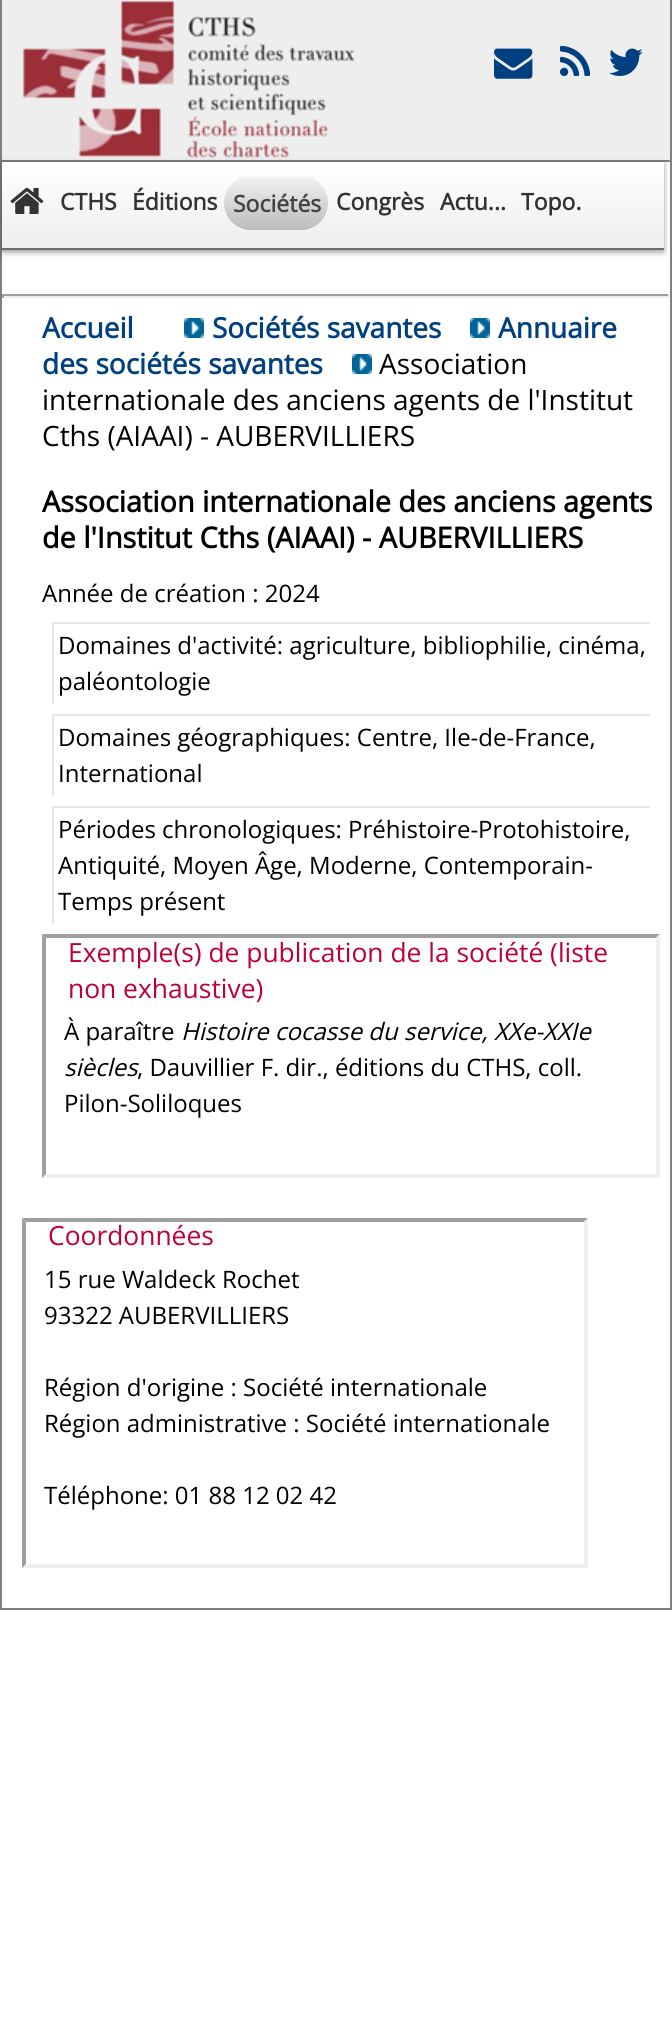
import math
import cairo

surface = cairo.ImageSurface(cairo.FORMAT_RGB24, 672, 2038)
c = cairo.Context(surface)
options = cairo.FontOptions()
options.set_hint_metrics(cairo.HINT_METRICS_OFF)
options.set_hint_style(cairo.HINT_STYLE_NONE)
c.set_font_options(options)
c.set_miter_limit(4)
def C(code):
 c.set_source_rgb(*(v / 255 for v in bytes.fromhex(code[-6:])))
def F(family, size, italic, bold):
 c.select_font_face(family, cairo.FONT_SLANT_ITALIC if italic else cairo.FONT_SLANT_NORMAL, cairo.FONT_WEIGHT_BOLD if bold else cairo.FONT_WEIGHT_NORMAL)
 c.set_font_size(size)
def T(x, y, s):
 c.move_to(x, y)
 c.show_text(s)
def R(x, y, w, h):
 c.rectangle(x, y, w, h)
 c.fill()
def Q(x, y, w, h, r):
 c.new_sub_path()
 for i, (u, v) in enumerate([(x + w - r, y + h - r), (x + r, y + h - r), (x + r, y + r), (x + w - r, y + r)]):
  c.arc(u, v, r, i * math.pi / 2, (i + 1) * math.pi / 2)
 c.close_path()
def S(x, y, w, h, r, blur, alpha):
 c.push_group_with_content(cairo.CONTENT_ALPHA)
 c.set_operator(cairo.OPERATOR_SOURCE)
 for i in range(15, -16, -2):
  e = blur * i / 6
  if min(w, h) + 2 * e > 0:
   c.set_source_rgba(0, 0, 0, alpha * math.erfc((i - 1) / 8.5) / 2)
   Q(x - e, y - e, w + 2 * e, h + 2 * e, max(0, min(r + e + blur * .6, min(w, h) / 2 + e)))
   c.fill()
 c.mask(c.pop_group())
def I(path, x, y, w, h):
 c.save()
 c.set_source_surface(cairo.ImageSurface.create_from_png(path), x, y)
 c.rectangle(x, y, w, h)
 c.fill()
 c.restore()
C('ffffff')
c.paint()
C('7f7f7f')
R(670,0,2,1610)
R(0,1608,672,2)
R(0,0,2,1610)
C('eeeeee')
R(2,0,668,160)
C('7f7f7f')
R(2,160,668,2)
I('1.png',22,0,333,158)
I('2.png',494,48,39,31)
I('3.png',560,45,31,31)
I('4.png',609,48,34,28)
C('000000')
S(2,164,662,88,0,3,.4)
gradient = cairo.LinearGradient(2,162,2,248)
gradient.add_color_stop_rgba(0,1,1,1,1)
gradient.add_color_stop_rgba(1,0.933,0.933,0.933,1)
c.set_source(gradient)
R(2,162,662,86)
C('6d6d6d')
R(2,248,662,2)
I('5.png',10,187,34,27)
F('Open Sans',23,0,1)
C('333333')
T(60,210,'CTHS')
T(132,210,'Éditions')
c.save()
Q(224,176,104,54,27)
c.clip()
gradient = cairo.LinearGradient(224,178,224,230)
gradient.add_color_stop_rgba(0,0.945,0.945,0.945,1)
gradient.add_color_stop_rgba(1,0.733,0.733,0.733,1)
c.set_source(gradient)
c.new_path()
c.move_to(224,178)
c.line_to(328,178)
c.line_to(328,203)
c.curve_to(328,218,316,230,301,230)
c.line_to(251,230)
c.curve_to(236,230,224,218,224,203)
c.close_path()
c.fill()
c.restore()
C('f8f8f8')
R(238,176,76,2)
C('444444')
T(233,212,'Sociétés')
C('333333')
T(336,210,'Congrès')
T(440,210,'Actu...')
T(521,210,'Topo.')
C('9f9f9f')
R(2,294,668,2)
C('eeeeee')
R(668,294,2,4)
R(2,296,668,2)
C('9f9f9f')
R(2,294,2,4)
F('Open Sans',28,0,1)
C('004080')
T(42,338,'Accueil')
I('6.png',184,318,20,20)
T(212,338,'Sociétés savantes')
I('6.png',470,318,20,20)
T(498,338,'Annuaire')
T(42,374,'des sociétés savantes')
I('6.png',352,354,20,20)
F('Open Sans',28,0,0)
C('000000')
T(379,374,'Association')
T(42,410,'internationale des anciens agents de l\'Institut')
T(42,446,'Cths (AIAAI) - AUBERVILLIERS')
F('Open Sans',28.8,0,1)
T(42,512,'Association internationale des anciens agents')
T(42,548,'de l\'Institut Cths (AIAAI) - AUBERVILLIERS')
F('Open Sans',24,0,0)
T(42,602,'Année de création : 2024')
C('e6e6e6')
R(52,622,598,2)
R(52,622,2,82)
C('000000')
T(58,654,'Domaines d\'activité: agriculture, bibliophilie, cinéma,')
T(58,690,'paléontologie')
C('e6e6e6')
R(52,714,598,2)
R(52,714,2,82)
C('000000')
T(58,746,'Domaines géographiques: Centre, Ile-de-France,')
T(58,782,'International')
C('e6e6e6')
R(52,806,598,2)
R(52,806,2,118)
C('000000')
T(58,838,'Périodes chronologiques: Préhistoire-Protohistoire,')
T(58,874,'Antiquité, Moyen Âge, Moderne, Contemporain-')
T(58,910,'Temps présent')
C('9f9f9f')
c.new_path()
c.move_to(42,934)
c.line_to(660,934)
c.line_to(656,938)
c.line_to(46,938)
c.close_path()
c.fill()
C('efefef')
c.new_path()
c.move_to(660,934)
c.line_to(660,1178)
c.line_to(656,1174)
c.line_to(656,938)
c.close_path()
c.fill()
c.new_path()
c.move_to(660,1178)
c.line_to(42,1178)
c.line_to(46,1174)
c.line_to(656,1174)
c.close_path()
c.fill()
C('9f9f9f')
c.new_path()
c.move_to(42,1178)
c.line_to(42,934)
c.line_to(46,938)
c.line_to(46,1174)
c.close_path()
c.fill()
F('Open Sans',26.4,0,0)
C('bd0036')
T(68,962,'Exemple(s) de publication de la société (liste')
T(68,998,'non exhaustive)')
F('Open Sans',24,0,0)
C('000000')
T(64,1040,'À paraître')
F('Open Sans',24,1,0)
T(181,1040,'Histoire cocasse du service, XXe-XXIe')
T(64,1076,'siècles')
F('Open Sans',24,0,0)
T(137,1076,', Dauvillier F. dir., éditions du CTHS, coll.')
T(64,1112,'Pilon-Soliloques')
C('9f9f9f')
c.new_path()
c.move_to(22,1218)
c.line_to(588,1218)
c.line_to(584,1222)
c.line_to(26,1222)
c.close_path()
c.fill()
C('efefef')
c.new_path()
c.move_to(588,1218)
c.line_to(588,1568)
c.line_to(584,1564)
c.line_to(584,1222)
c.close_path()
c.fill()
c.new_path()
c.move_to(588,1568)
c.line_to(22,1568)
c.line_to(26,1564)
c.line_to(584,1564)
c.close_path()
c.fill()
C('9f9f9f')
c.new_path()
c.move_to(22,1568)
c.line_to(22,1218)
c.line_to(26,1222)
c.line_to(26,1564)
c.close_path()
c.fill()
F('Open Sans',26.4,0,0)
C('bd0036')
T(48,1245,'Coordonnées')
F('Open Sans',24,0,0)
C('000000')
T(44,1288,'15 rue Waldeck Rochet')
T(44,1324,'93322 AUBERVILLIERS')
T(44,1396,'Région d\'origine : Société internationale')
T(44,1432,'Région administrative : Société internationale')
T(44,1504,'Téléphone: 01 88 12 02 42')
surface.write_to_png('o.png')
